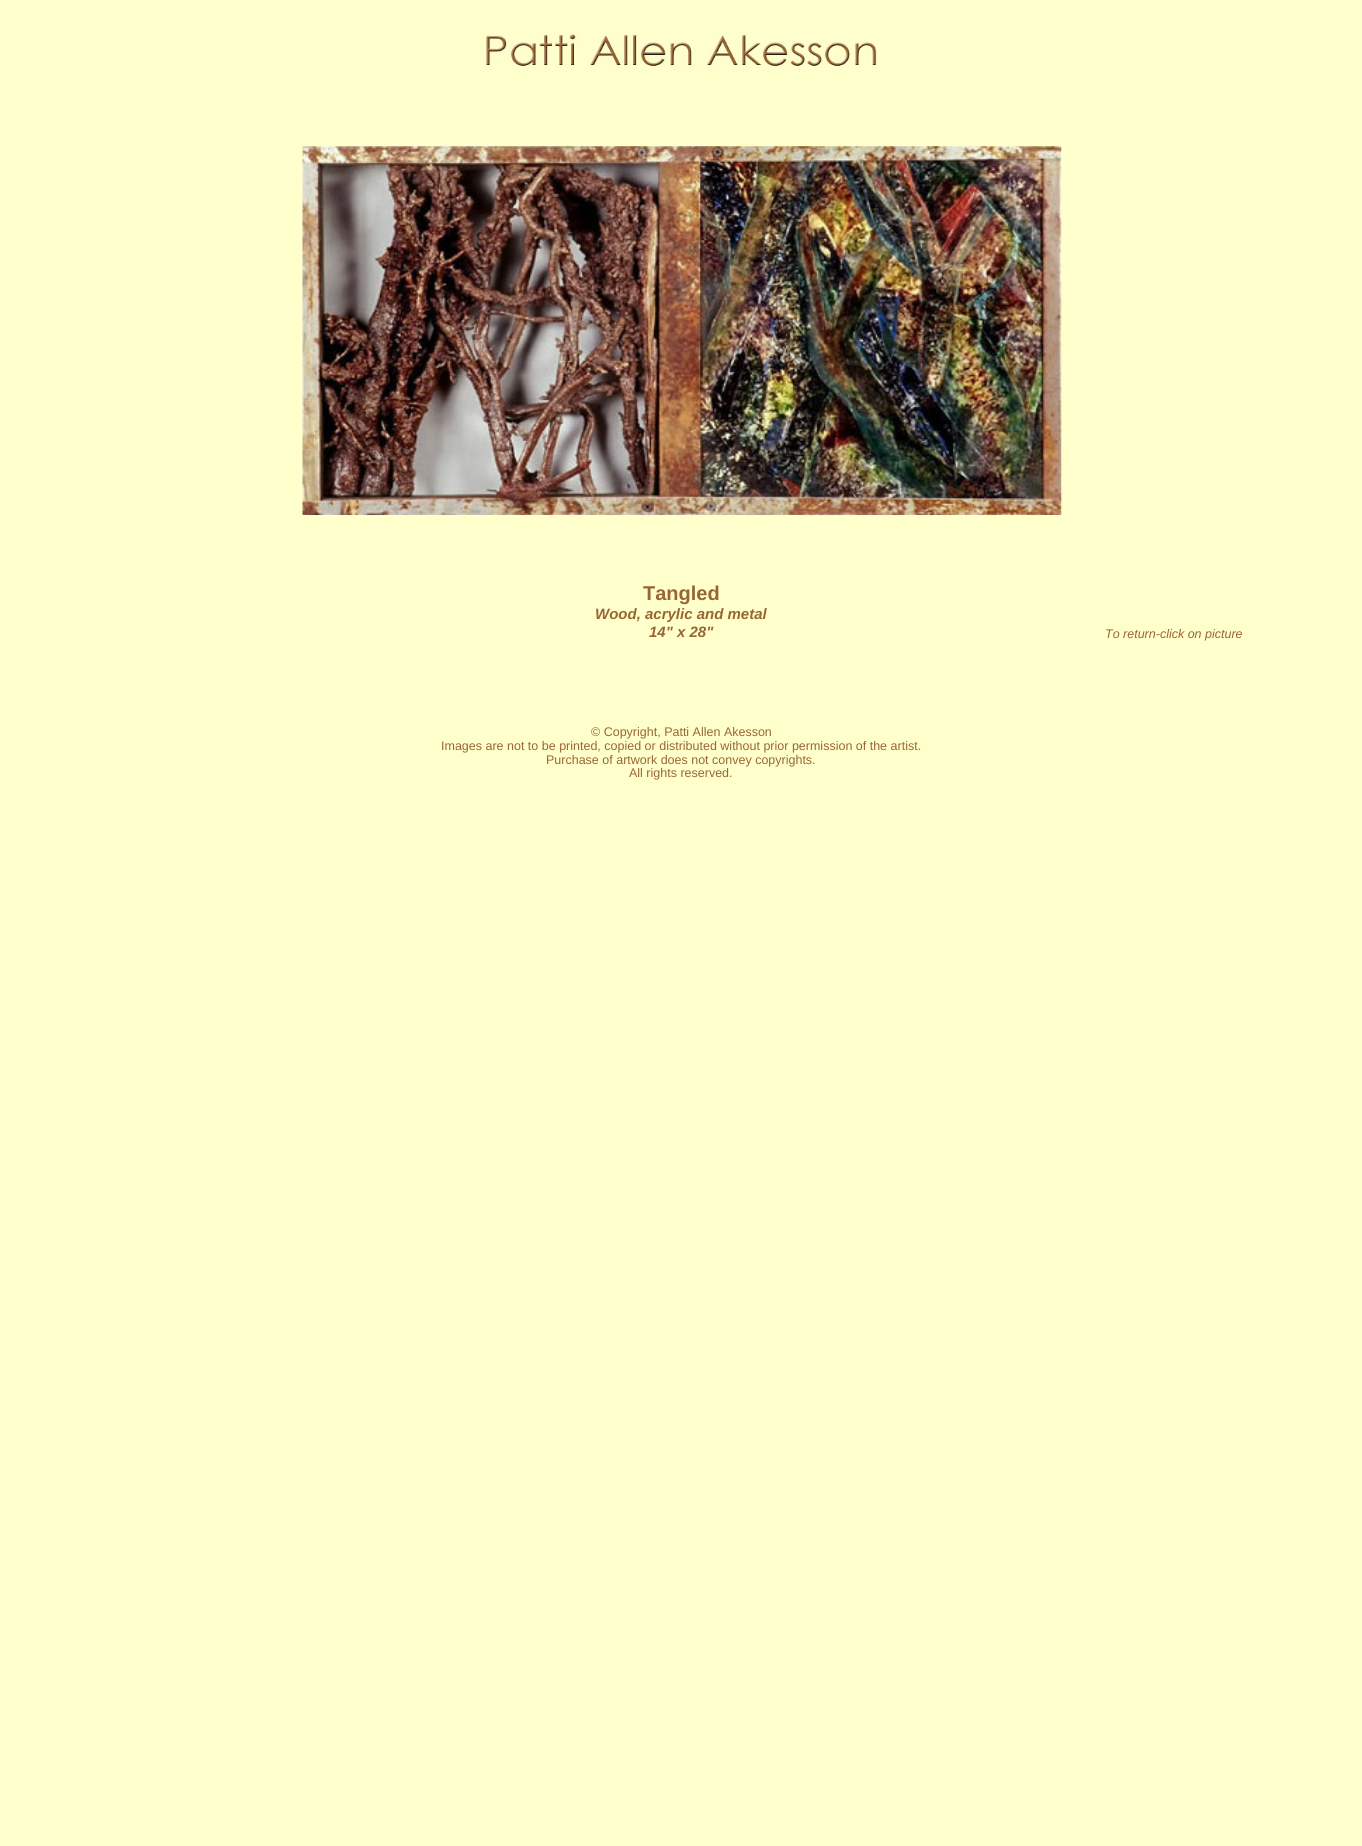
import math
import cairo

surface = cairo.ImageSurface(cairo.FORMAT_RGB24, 1362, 1846)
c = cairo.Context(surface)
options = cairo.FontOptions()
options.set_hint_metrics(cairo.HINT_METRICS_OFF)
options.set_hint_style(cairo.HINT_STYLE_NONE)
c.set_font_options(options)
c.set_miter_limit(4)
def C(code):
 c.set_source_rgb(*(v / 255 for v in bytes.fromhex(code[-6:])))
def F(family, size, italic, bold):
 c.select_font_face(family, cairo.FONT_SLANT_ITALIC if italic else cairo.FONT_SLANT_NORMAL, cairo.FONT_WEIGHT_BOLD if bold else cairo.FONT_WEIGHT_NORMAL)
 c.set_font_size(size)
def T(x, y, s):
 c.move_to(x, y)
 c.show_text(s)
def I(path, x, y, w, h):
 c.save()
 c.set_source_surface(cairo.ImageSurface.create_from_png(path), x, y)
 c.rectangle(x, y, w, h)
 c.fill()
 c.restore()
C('ffffcc')
c.paint()
I('1.png',486,33,392,37)
I('2.png',302,146,760,369)
F('Liberation Sans',20,0,1)
C('996633')
T(643,600,'Tangled')
F('Liberation Sans',15,1,1)
T(595,619,'Wood, acrylic and metal')
T(649,637,'14" x 28"')
F('Liberation Sans',12.5,1,0)
T(1105,638,'To return-click on picture')
F('Liberation Sans',12.5,0,0)
T(591,736,'© Copyright, Patti Allen Akesson')
T(441,750,'Images are not to be printed, copied or distributed without prior permission of the artist.')
T(546,764,'Purchase of artwork does not convey copyrights.')
T(629,777,'All rights reserved.')
surface.write_to_png('o.png')
